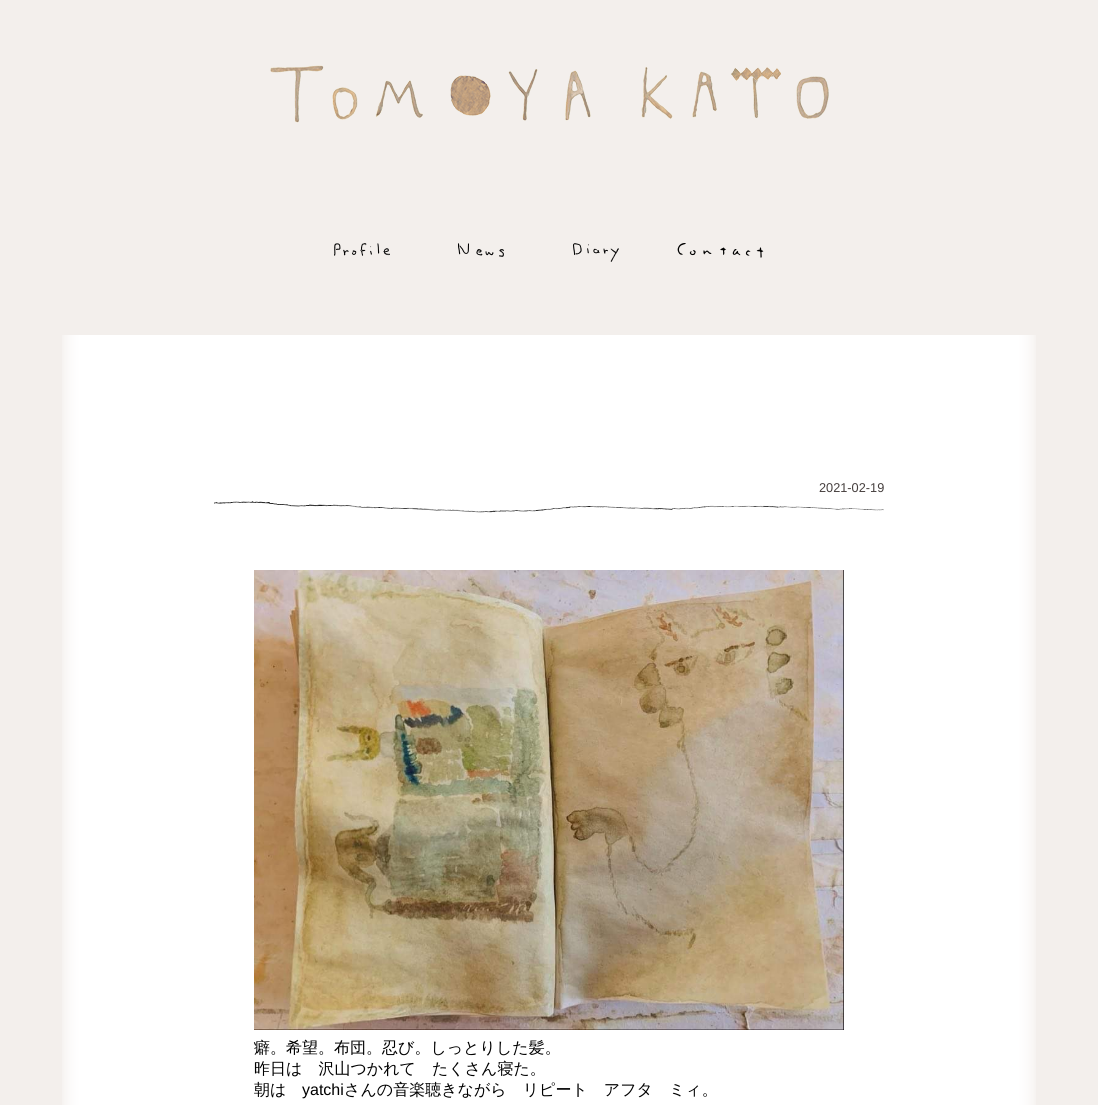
import math
import cairo

surface = cairo.ImageSurface(cairo.FORMAT_RGB24, 1098, 1105)
c = cairo.Context(surface)
options = cairo.FontOptions()
options.set_hint_metrics(cairo.HINT_METRICS_OFF)
options.set_hint_style(cairo.HINT_STYLE_NONE)
c.set_font_options(options)
c.set_miter_limit(4)
def C(code):
 c.set_source_rgb(*(v / 255 for v in bytes.fromhex(code[-6:])))
def F(family, size, italic, bold):
 c.select_font_face(family, cairo.FONT_SLANT_ITALIC if italic else cairo.FONT_SLANT_NORMAL, cairo.FONT_WEIGHT_BOLD if bold else cairo.FONT_WEIGHT_NORMAL)
 c.set_font_size(size)
def T(x, y, s):
 c.move_to(x, y)
 c.show_text(s)
def I(path, x, y, w, h):
 c.save()
 c.set_source_surface(cairo.ImageSurface.create_from_png(path), x, y)
 c.rectangle(x, y, w, h)
 c.fill()
 c.restore()
C('f3efec')
c.paint()
I('1.png',270,65,559,58)
I('2.png',334,243,56,13)
I('3.png',458,243,46,14)
I('4.png',573,243,46,19)
I('5.png',677,243,87,15)
I('6.png',62,335,974,770)
I('7.png',214,501,670,12)
F('Liberation Sans',12.75,0,0)
C('463f3e')
T(819,492,'2021-02-19')
I('8.png',254,570,590,460)
F('WenQuanYi Zen Hei Medium',16,0,0)
C('000000')
T(254,1053,'癖。希望。布団。忍び。しっとりした髪。')
T(254,1074,'昨日は　沢山つかれて　たくさん寝た。')
T(254,1095,'朝は')
F('Liberation Sans',16,0,0)
T(302,1095,'yatchi')
F('WenQuanYi Zen Hei Medium',16,0,0)
T(344,1095,'さんの音楽聴きながら　リピート　アフタ　ミィ。')
surface.write_to_png('o.png')
